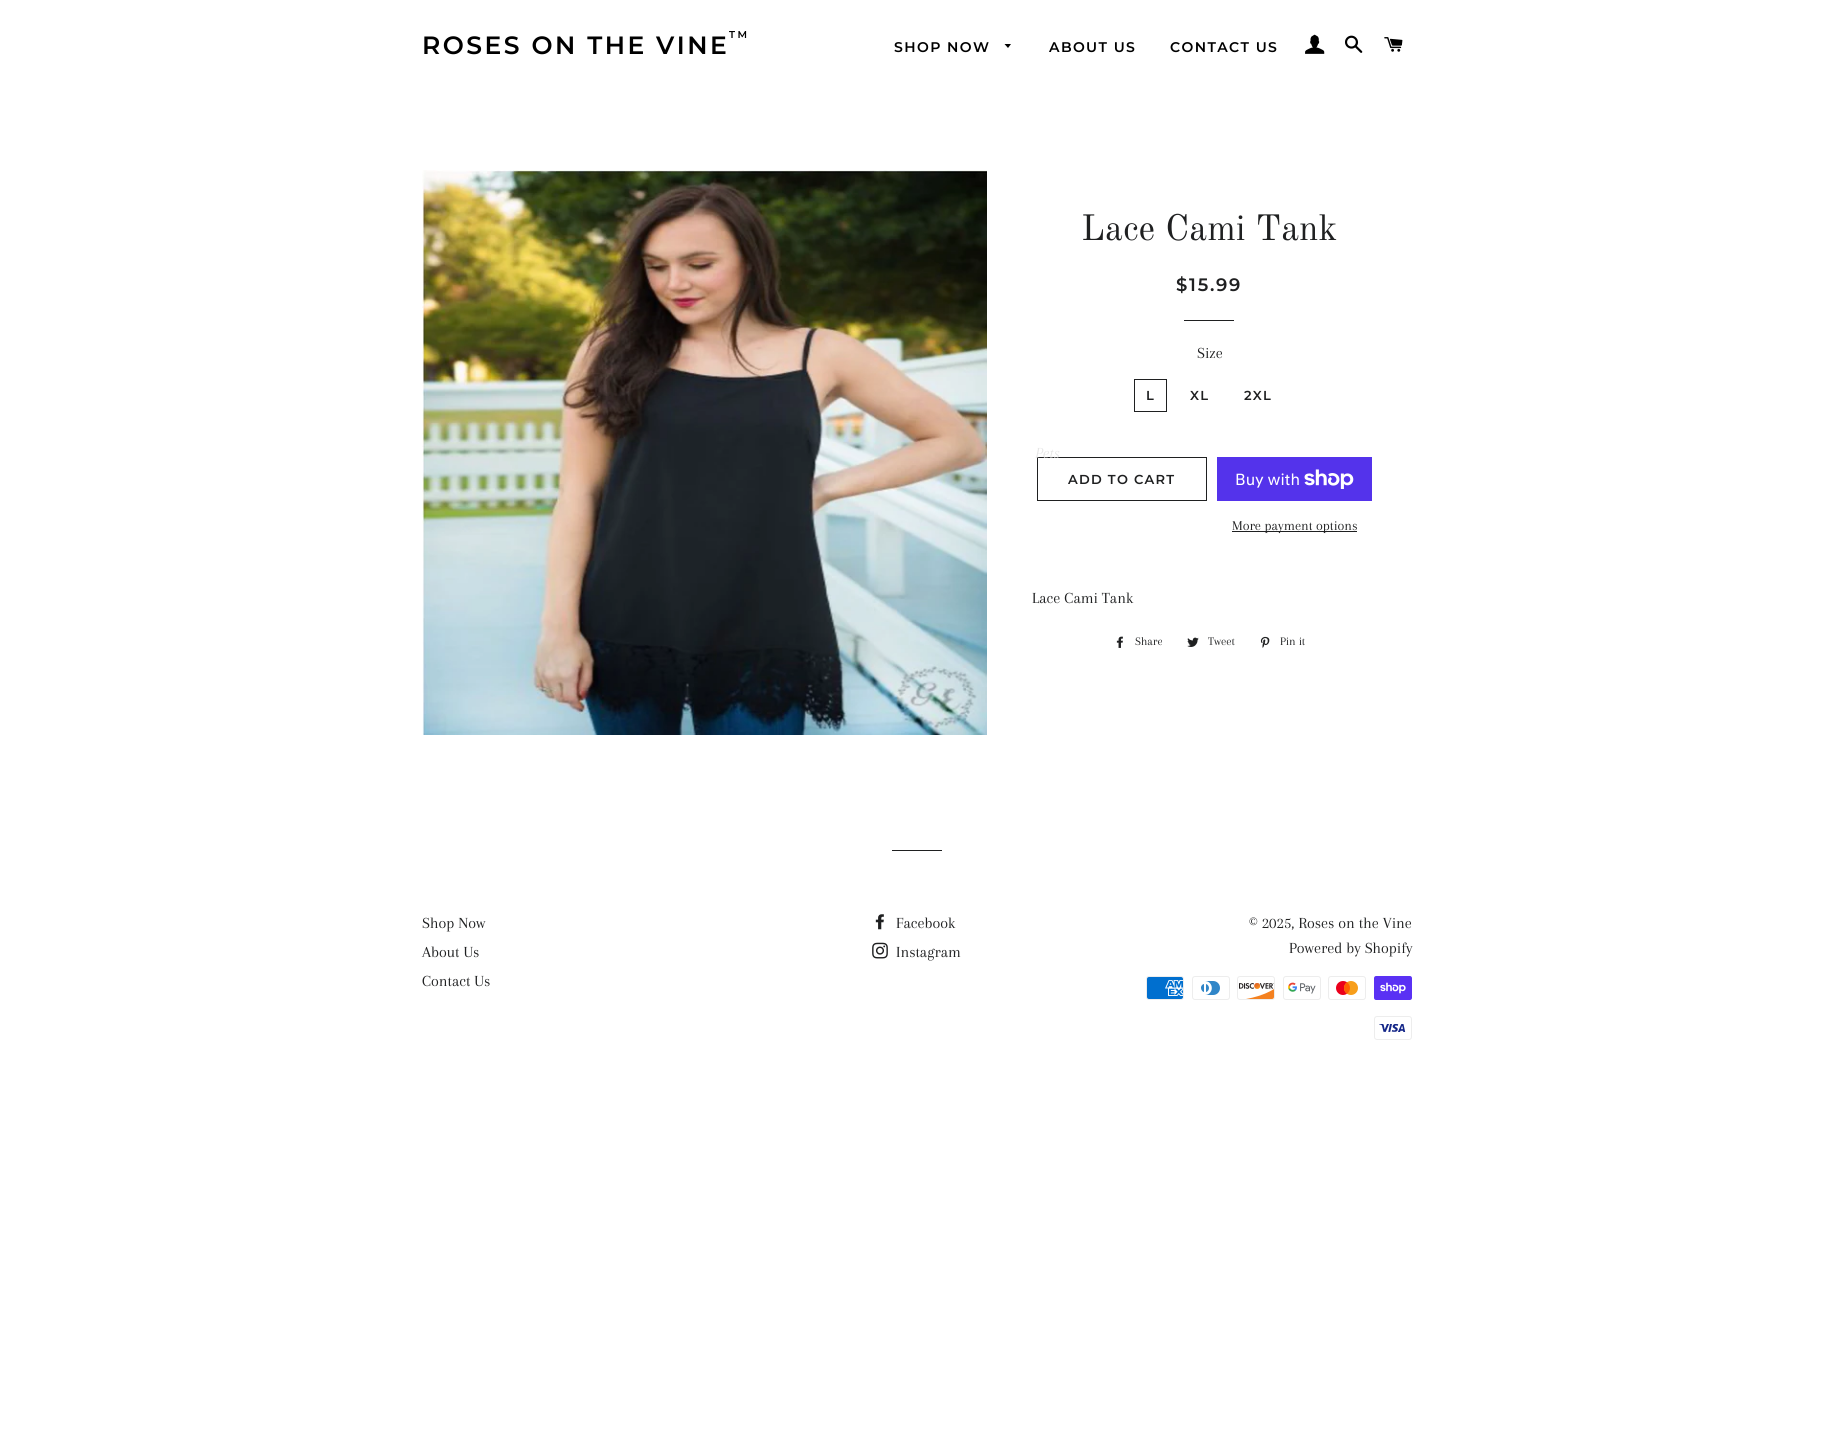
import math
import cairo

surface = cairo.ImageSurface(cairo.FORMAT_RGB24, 1834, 1443)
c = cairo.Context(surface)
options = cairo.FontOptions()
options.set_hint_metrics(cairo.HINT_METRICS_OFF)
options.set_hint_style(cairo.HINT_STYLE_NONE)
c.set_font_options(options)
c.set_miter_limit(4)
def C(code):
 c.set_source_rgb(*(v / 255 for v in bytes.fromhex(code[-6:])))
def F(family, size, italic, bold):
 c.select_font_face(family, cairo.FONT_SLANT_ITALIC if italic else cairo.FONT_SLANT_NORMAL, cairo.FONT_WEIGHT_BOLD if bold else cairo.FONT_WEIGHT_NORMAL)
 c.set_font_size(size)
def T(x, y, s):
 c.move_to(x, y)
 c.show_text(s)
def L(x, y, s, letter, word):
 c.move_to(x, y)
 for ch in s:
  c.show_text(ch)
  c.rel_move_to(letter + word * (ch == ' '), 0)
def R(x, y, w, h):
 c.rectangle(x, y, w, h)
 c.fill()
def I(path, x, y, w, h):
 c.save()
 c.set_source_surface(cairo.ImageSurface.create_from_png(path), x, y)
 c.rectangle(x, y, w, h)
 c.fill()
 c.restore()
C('ffffff')
c.paint()
F('Montserrat SemiBold',10,0,0)
C('000000')
L(729,38,'TM',2.5,0)
F('Montserrat SemiBold',25,0,0)
L(422,54,'ROSES ON THE VINE',2.5,0)
F('Montserrat SemiBold',14,0,0)
L(894,52,'SHOP NOW',1.4,0)
c.new_path()
c.move_to(1004.5,44)
c.line_to(1008,48)
c.line_to(1011,44)
c.close_path()
c.fill()
c.rectangle(1037.5,457.5,169,43)
C('1f2021')
c.set_line_width(1)
c.stroke()
F('Arapey',16,1,0)
C('e5e5e5')
T(1035,458,'Pets')
F('Montserrat SemiBold',14,0,0)
C('000000')
L(1049,52,'ABOUT US',1.4,0)
L(1170,52,'CONTACT US',1.4,0)
I('1.png',1305,34,20,20)
I('2.png',1345,35,18,18)
I('3.png',1384,37,19,15)
I('4.png',422,170,565,565)
F('Old Standard TT',36,0,0)
C('1f2021')
T(1081,240,'Lace Cami Tank')
F('Montserrat SemiBold',18,0,0)
L(1176,291,'$15.99',1.75,0)
R(1184,320,50,1)
F('Arapey',16,0,0)
T(1197,358,'Size')
c.rectangle(1134.5,379.5,32,32)
c.stroke()
F('Montserrat SemiBold',13,0,0)
L(1146,400,'L',1.25,0)
L(1190,400,'XL',1.25,0)
L(1244,400,'2XL',1.25,0)
L(1068,484,'ADD TO CART',1.25,0)
C('5433eb')
R(1217,457,155,44)
F('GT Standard',16,0,0)
C('ffffff')
T(1235,485,'Buy with')
I('5.png',1304,469,50,20)
C('1f2021')
R(1232,531,125,1)
F('Arapey',14,0,0)
T(1232,530,'More payment options')
F('Arapey',16,0,0)
T(1032,603,'Lace Cami Tank')
I('6.png',1116,636,7,12)
F('Arapey',12,0,0)
T(1135,645,'Share')
I('7.png',1187,637,12,10)
T(1208,645,'Tweet')
I('8.png',1260,636,10,12)
T(1280,645,'Pin it')
R(892,850,50,1)
F('Arapey',16,0,0)
T(422,928,'Shop Now')
T(422,957,'About Us')
T(422,986,'Contact Us')
I('9.png',875,914,9,16)
T(896,928,'Facebook')
I('10.png',872,942,16,17)
T(896,957,'Instagram')
T(1249,928,'© 2025, Roses on the Vine')
T(1289,953,'Powered by Shopify')
I('11.png',1146,976,38,24)
I('12.png',1192,976,38,24)
I('13.png',1237,976,38,24)
I('14.png',1283,976,38,24)
I('15.png',1328,976,38,24)
I('16.png',1374,976,38,24)
I('17.png',1374,1016,38,24)
surface.write_to_png('o.png')
